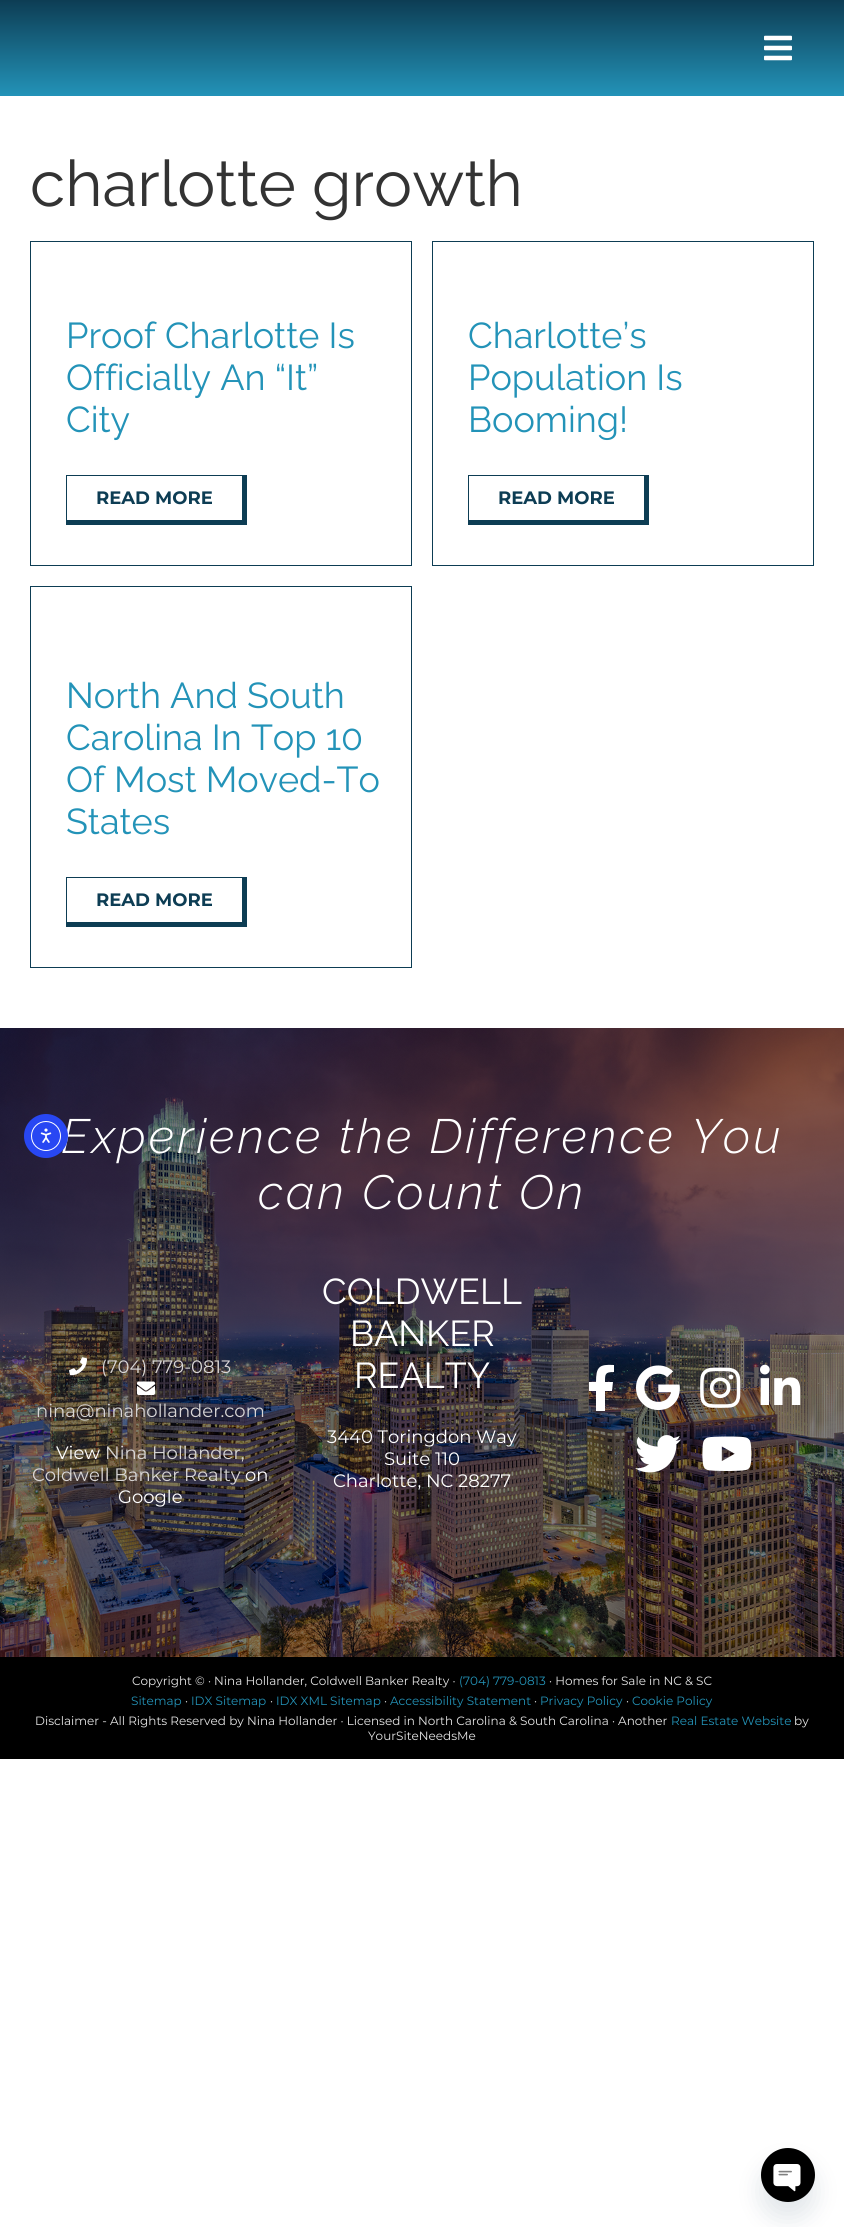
import math
import cairo

surface = cairo.ImageSurface(cairo.FORMAT_RGB24, 844, 2227)
c = cairo.Context(surface)
options = cairo.FontOptions()
options.set_hint_metrics(cairo.HINT_METRICS_OFF)
options.set_hint_style(cairo.HINT_STYLE_NONE)
c.set_font_options(options)
c.set_miter_limit(4)
def C(code):
 c.set_source_rgb(*(v / 255 for v in bytes.fromhex(code[-6:])))
def F(family, size, italic, bold):
 c.select_font_face(family, cairo.FONT_SLANT_ITALIC if italic else cairo.FONT_SLANT_NORMAL, cairo.FONT_WEIGHT_BOLD if bold else cairo.FONT_WEIGHT_NORMAL)
 c.set_font_size(size)
def T(x, y, s):
 c.move_to(x, y)
 c.show_text(s)
def L(x, y, s, letter, word):
 c.move_to(x, y)
 for ch in s:
  c.show_text(ch)
  c.rel_move_to(letter + word * (ch == ' '), 0)
def R(x, y, w, h):
 c.rectangle(x, y, w, h)
 c.fill()
def Q(x, y, w, h, r):
 c.new_sub_path()
 for i, (u, v) in enumerate([(x + w - r, y + h - r), (x + r, y + h - r), (x + r, y + r), (x + w - r, y + r)]):
  c.arc(u, v, r, i * math.pi / 2, (i + 1) * math.pi / 2)
 c.close_path()
def S(x, y, w, h, r, blur, alpha):
 c.push_group_with_content(cairo.CONTENT_ALPHA)
 c.set_operator(cairo.OPERATOR_SOURCE)
 for i in range(15, -16, -2):
  e = blur * i / 6
  if min(w, h) + 2 * e > 0:
   c.set_source_rgba(0, 0, 0, alpha * math.erfc((i - 1) / 8.5) / 2)
   Q(x - e, y - e, w + 2 * e, h + 2 * e, max(0, min(r + e + blur * .6, min(w, h) / 2 + e)))
   c.fill()
 c.mask(c.pop_group())
def I(path, x, y, w, h):
 c.save()
 c.set_source_surface(cairo.ImageSurface.create_from_png(path), x, y)
 c.rectangle(x, y, w, h)
 c.fill()
 c.restore()
C('ffffff')
c.paint()
gradient = cairo.LinearGradient(422,0,422,96)
gradient.add_color_stop_rgba(0,0.051,0.239,0.329,1)
gradient.add_color_stop_rgba(1,0.137,0.576,0.722,1)
c.set_source(gradient)
R(0,0,844,96)
I('1.png',764,35,28,26)
F('Raleway',64,0,0)
C('333333')
T(30,206,'charlotte growth')
c.rectangle(30.5,241.5,381,324)
C('0d3d54')
c.set_line_width(1)
c.stroke()
F('Raleway',36,0,0)
C('2393b8')
T(66,348,'Proof Charlotte Is')
T(66,390,'Officially An “It”')
T(66,432,'City')
C('0d3d54')
R(66,475,181,1)
R(242,475,5,50)
R(66,520,181,5)
R(66,475,1,50)
F('Montserrat',18,0,1)
T(96,504,'READ MORE')
c.rectangle(432.5,241.5,381,324)
c.stroke()
F('Raleway',36,0,0)
C('2393b8')
T(468,348,'Charlotte’s')
T(468,390,'Population Is')
T(468,432,'Booming!')
C('0d3d54')
R(468,475,181,1)
R(644,475,5,50)
R(468,520,181,5)
R(468,475,1,50)
F('Montserrat',18,0,1)
T(498,504,'READ MORE')
c.rectangle(30.5,586.5,381,381)
c.stroke()
F('Raleway',36,0,0)
C('2393b8')
T(66,708,'North And South')
T(66,750,'Carolina In Top 10')
T(66,792,'Of Most Moved-To')
T(66,834,'States')
C('0d3d54')
R(66,877,181,1)
R(242,877,5,50)
R(66,922,181,5)
R(66,877,1,50)
F('Montserrat',18,0,1)
T(96,906,'READ MORE')
I('2.png',0,1028,844,629)
F('Raleway Light',48,1,0)
C('ffffff')
L(61,1153,'Experience the Difference You',3,0)
L(258,1209,'can Count On',3,0)
I('3.png',69,1357,18,19)
F('Montserrat',18,0,0)
C('d8d6d6')
T(101,1373,'(704) 779-0813')
I('4.png',137,1381,18,14)
T(36,1417,'nina@ninahollander.com')
C('ffffff')
T(56,1459,'View')
C('d8d6d6')
T(105,1459,'Nina Hollander,')
T(32,1481,'Coldwell Banker Realty')
C('ffffff')
T(245,1481,'on')
T(118,1503,'Google')
F('Raleway',36,0,0)
T(322,1304,'COLDWELL')
T(350,1346,'BANKER')
T(354,1388,'REALTY')
F('Montserrat',18,0,0)
T(327,1443,'3440 Toringdon Way')
T(384,1465,'Suite 110')
T(333,1487,'Charlotte, NC 28277')
c.new_path()
c.move_to(612,1391)
c.line_to(605,1391)
c.line_to(605,1411)
c.line_to(596,1411)
c.line_to(596,1391)
c.line_to(589,1391)
c.line_to(589,1382)
c.line_to(596,1382)
c.curve_to(596,1367,599,1364,614,1365)
c.line_to(614,1372)
c.curve_to(605,1372,605,1374,605,1382)
c.line_to(613,1382)
c.close_path()
c.fill()
I('5.png',636,1365,44,45)
I('6.png',700,1367,41,41)
I('7.png',760,1364,41,41)
I('8.png',635,1435,46,38)
I('9.png',702,1436,50,35)
C('000000')
R(0,1657,844,102)
F('Montserrat',12,0,0)
C('e6e6e6')
T(132,1685,'Copyright © · Nina Hollander, Coldwell Banker Realty ·')
C('2393b8')
T(459,1685,'(704) 779-0813')
C('e6e6e6')
T(549,1685,'· Homes for Sale in NC & SC')
C('2393b8')
T(131,1705,'Sitemap')
C('e6e6e6')
T(185,1705,'·')
C('2393b8')
T(191,1705,'IDX Sitemap')
C('e6e6e6')
T(270,1705,'·')
C('2393b8')
T(276,1705,'IDX XML Sitemap')
C('e6e6e6')
T(384,1705,'·')
C('2393b8')
T(390,1705,'Accessibility Statement')
C('e6e6e6')
T(534,1705,'·')
C('2393b8')
T(540,1705,'Privacy Policy')
C('e6e6e6')
T(626,1705,'·')
C('2393b8')
T(632,1705,'Cookie Policy')
C('e6e6e6')
T(35,1725,'Disclaimer - All Rights Reserved by Nina Hollander · Licensed in North Carolina & South Carolina · Another')
C('2393b8')
T(671,1725,'Real Estate Website')
C('e6e6e6')
T(794,1725,'by')
T(368,1740,'YourSiteNeedsMe')
C('2847f3')
c.new_path()
c.arc(46,1136,22,0,2 * math.pi)
c.fill()
c.arc(46,1136,14.5,0,2 * math.pi)
C('ffffff')
c.stroke()
I('10.png',40,1128,12,15)
C('49687e')
S(761,2164,54,54,27,12,.16)
I('11.png',761,2148,54,54)
surface.write_to_png('o.png')
